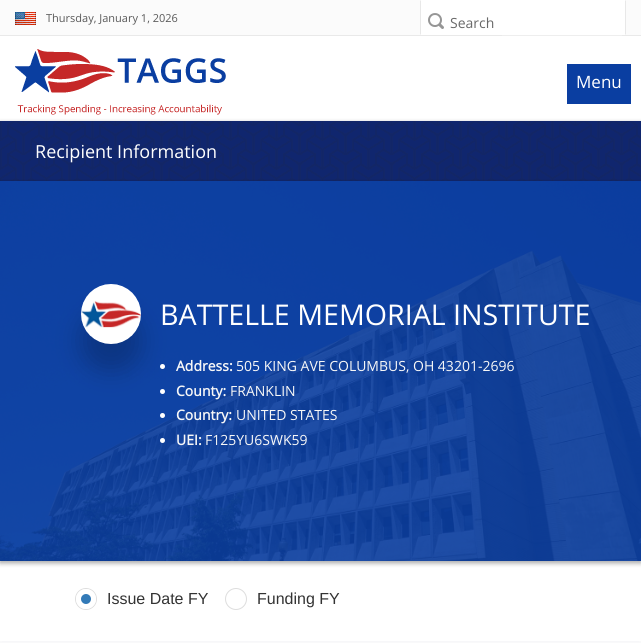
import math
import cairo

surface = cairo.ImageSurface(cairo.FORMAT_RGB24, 641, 643)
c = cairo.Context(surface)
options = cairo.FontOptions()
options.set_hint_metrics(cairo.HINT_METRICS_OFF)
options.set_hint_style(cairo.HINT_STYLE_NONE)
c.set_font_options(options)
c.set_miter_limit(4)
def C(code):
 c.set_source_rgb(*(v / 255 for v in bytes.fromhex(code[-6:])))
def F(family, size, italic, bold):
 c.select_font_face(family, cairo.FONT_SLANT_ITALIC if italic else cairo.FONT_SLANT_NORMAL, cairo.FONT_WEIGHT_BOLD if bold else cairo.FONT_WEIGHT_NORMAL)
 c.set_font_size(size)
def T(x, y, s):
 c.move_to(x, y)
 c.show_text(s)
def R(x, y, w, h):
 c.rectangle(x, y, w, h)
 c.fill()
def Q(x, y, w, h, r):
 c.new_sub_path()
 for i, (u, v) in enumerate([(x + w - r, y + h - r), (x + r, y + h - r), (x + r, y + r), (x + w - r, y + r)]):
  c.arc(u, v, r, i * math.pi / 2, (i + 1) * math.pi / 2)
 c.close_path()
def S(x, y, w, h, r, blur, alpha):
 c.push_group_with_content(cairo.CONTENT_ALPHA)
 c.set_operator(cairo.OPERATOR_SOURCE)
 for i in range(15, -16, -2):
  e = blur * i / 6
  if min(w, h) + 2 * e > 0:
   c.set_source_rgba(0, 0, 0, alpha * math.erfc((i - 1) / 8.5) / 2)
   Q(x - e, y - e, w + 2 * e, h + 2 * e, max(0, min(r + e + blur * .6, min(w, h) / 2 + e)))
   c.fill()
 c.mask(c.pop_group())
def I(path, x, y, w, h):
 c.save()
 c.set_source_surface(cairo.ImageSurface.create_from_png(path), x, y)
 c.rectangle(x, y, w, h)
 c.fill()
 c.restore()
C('ffffff')
c.paint()
C('fbfbfb')
R(0,0,641,35)
C('e9e9e9')
R(0,35,641,1)
I('1.png',15,12,21,13)
F('Open Sans',11,0,0)
C('595959')
T(46,22,'Thursday, January 1, 2026')
C('ffffff')
R(420,0,206,35)
C('e8e8e8')
c.new_path()
c.move_to(626,0)
c.line_to(626,35)
c.line_to(625,34)
c.line_to(625,1)
c.close_path()
c.fill()
c.new_path()
c.move_to(420,35)
c.line_to(420,0)
c.line_to(421,1)
c.line_to(421,34)
c.close_path()
c.fill()
I('2.png',428,13,16,16)
F('Open Sans',14,0,0)
C('696969')
T(450,28,'Search')
C('eeeeee')
R(502,35,120,1)
I('3.png',15,49,211,66)
C('0a3ea1')
R(567,64,64,40)
F('Open Sans',17,0,0)
C('ffffff')
T(576,88,'Menu')
C('000000')
S(0,123,641,60,0,2.5,.23)
S(0,123,641,60,0,2.5,.16)
C('10266e')
R(0,121,641,60)
I('4.png',0,121,641,60)
F('Open Sans',18,0,0)
C('ffffff')
T(35,158,'Recipient Information')
C('3e396b')
S(-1,561,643,82,0,7.5,.07)
I('5.png',0,181,641,380)
C('ffffff')
R(0,561,641,80)
c.save()
c.set_fill_rule(cairo.FILL_RULE_EVEN_ODD)
c.new_path()
c.move_to(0,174)
c.line_to(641,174)
c.line_to(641,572)
c.line_to(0,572)
c.close_path()
c.move_to(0,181)
c.line_to(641,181)
c.line_to(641,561)
c.line_to(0,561)
c.close_path()
c.clip()
C('000000')
S(0,183,641,380,0,2.5,.23)
S(0,183,641,380,0,2.5,.16)
c.restore()
c.arc(162.5,366.5,2.5,0,2 * math.pi)
c.fill()
c.arc(162.5,391.5,2.5,0,2 * math.pi)
c.fill()
C('000000')
S(81,311,60,60,30,12,.2)
I('6.png',81,284,60,60)
F('Open Sans',28.6,0,0)
C('ffffff')
T(160,325,'BATTELLE MEMORIAL INSTITUTE')
F('Open Sans',14,0,1)
C('f7f7f7')
T(176,371,'Address:')
F('Open Sans',14,0,0)
T(236,371,'505 KING AVE COLUMBUS, OH 43201-2696')
F('Open Sans',14,0,1)
T(176,396,'County:')
F('Open Sans',14,0,0)
T(230,396,'FRANKLIN')
C('ffffff')
c.new_path()
c.arc(162.5,415.5,2.5,0,2 * math.pi)
c.fill()
F('Open Sans',14,0,1)
C('f7f7f7')
T(176,420,'Country:')
F('Open Sans',14,0,0)
T(236,420,'UNITED STATES')
C('ffffff')
c.new_path()
c.arc(162.5,440.5,2.5,0,2 * math.pi)
c.fill()
F('Open Sans',14,0,1)
C('f7f7f7')
T(176,445,'UEI:')
F('Open Sans',14,0,0)
T(205,445,'F125YU6SWK59')
c.new_path()
c.arc(86,599,10.5,0,2 * math.pi)
C('dddddd')
c.set_line_width(1)
c.stroke()
C('337ab7')
c.arc(86,599,7.5,0,2 * math.pi)
c.fill_preserve()
C('ffffff')
c.set_line_width(5)
c.stroke()
F('Liberation Sans',16,0,0)
C('333333')
T(107,604,'Issue Date FY')
c.new_path()
c.arc(236,599,10.5,0,2 * math.pi)
C('dddddd')
c.set_line_width(1)
c.stroke()
C('333333')
T(257,604,'Funding FY')
surface.write_to_png('o.png')
